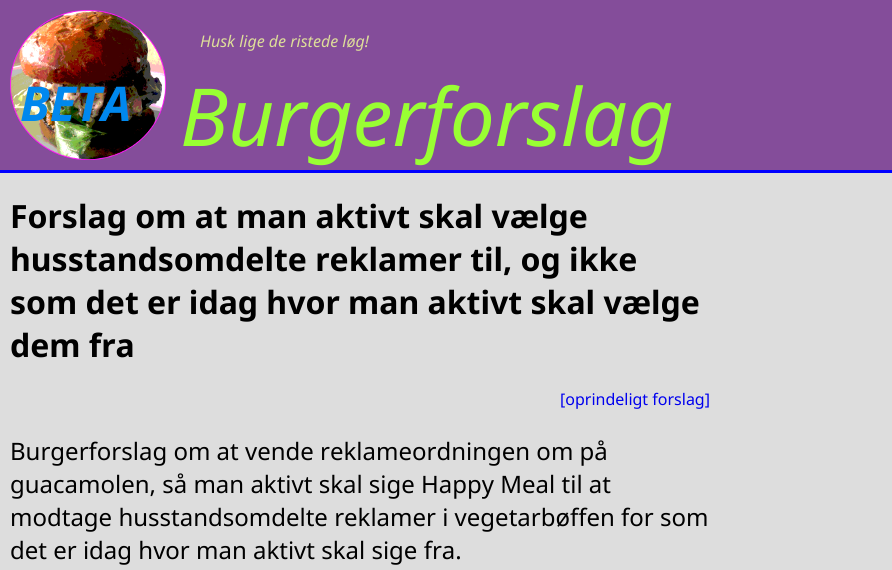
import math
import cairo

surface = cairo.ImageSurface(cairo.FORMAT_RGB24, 892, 570)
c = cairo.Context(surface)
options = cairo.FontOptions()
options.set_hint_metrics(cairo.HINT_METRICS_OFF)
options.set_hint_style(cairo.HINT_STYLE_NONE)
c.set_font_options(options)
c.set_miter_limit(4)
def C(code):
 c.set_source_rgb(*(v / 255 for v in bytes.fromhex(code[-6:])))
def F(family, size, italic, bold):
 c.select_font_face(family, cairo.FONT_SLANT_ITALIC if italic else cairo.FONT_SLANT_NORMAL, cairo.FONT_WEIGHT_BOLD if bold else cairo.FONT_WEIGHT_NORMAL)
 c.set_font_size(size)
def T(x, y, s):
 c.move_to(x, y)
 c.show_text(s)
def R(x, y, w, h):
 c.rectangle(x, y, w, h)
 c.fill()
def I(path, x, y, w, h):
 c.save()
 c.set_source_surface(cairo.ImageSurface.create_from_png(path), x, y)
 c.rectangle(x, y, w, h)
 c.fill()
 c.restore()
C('dddddd')
c.paint()
C('844d9a')
R(0,0,892,170)
I('1.png',10,10,156,150)
C('0000ff')
R(0,170,892,3)
F('Noto Sans',16,1,0)
C('dddd99')
T(200,47,'Husk lige de ristede løg!')
F('Noto Sans',48,1,1)
C('0088ee')
T(20,121,'BETA')
F('Noto Sans',80,1,0)
C('99ff33')
T(180,146,'Burgerforslag')
F('Noto Sans',32,0,1)
C('000000')
T(10,228,'Forslag om at man aktivt skal vælge')
T(10,271,'husstandsomdelte reklamer til, og ikke')
T(10,314,'som det er idag hvor man aktivt skal vælge')
T(10,357,'dem fra')
F('Noto Sans',16,0,0)
C('0000ee')
T(560,405,'[oprindeligt forslag]')
F('Noto Sans',24,0,0)
C('000000')
T(10,460,'Burgerforslag om at vende reklameordningen om på')
T(10,493,'guacamolen, så man aktivt skal sige Happy Meal til at')
T(10,526,'modtage husstandsomdelte reklamer i vegetarbøffen for som')
T(10,559,'det er idag hvor man aktivt skal sige fra.')
surface.write_to_png('o.png')
